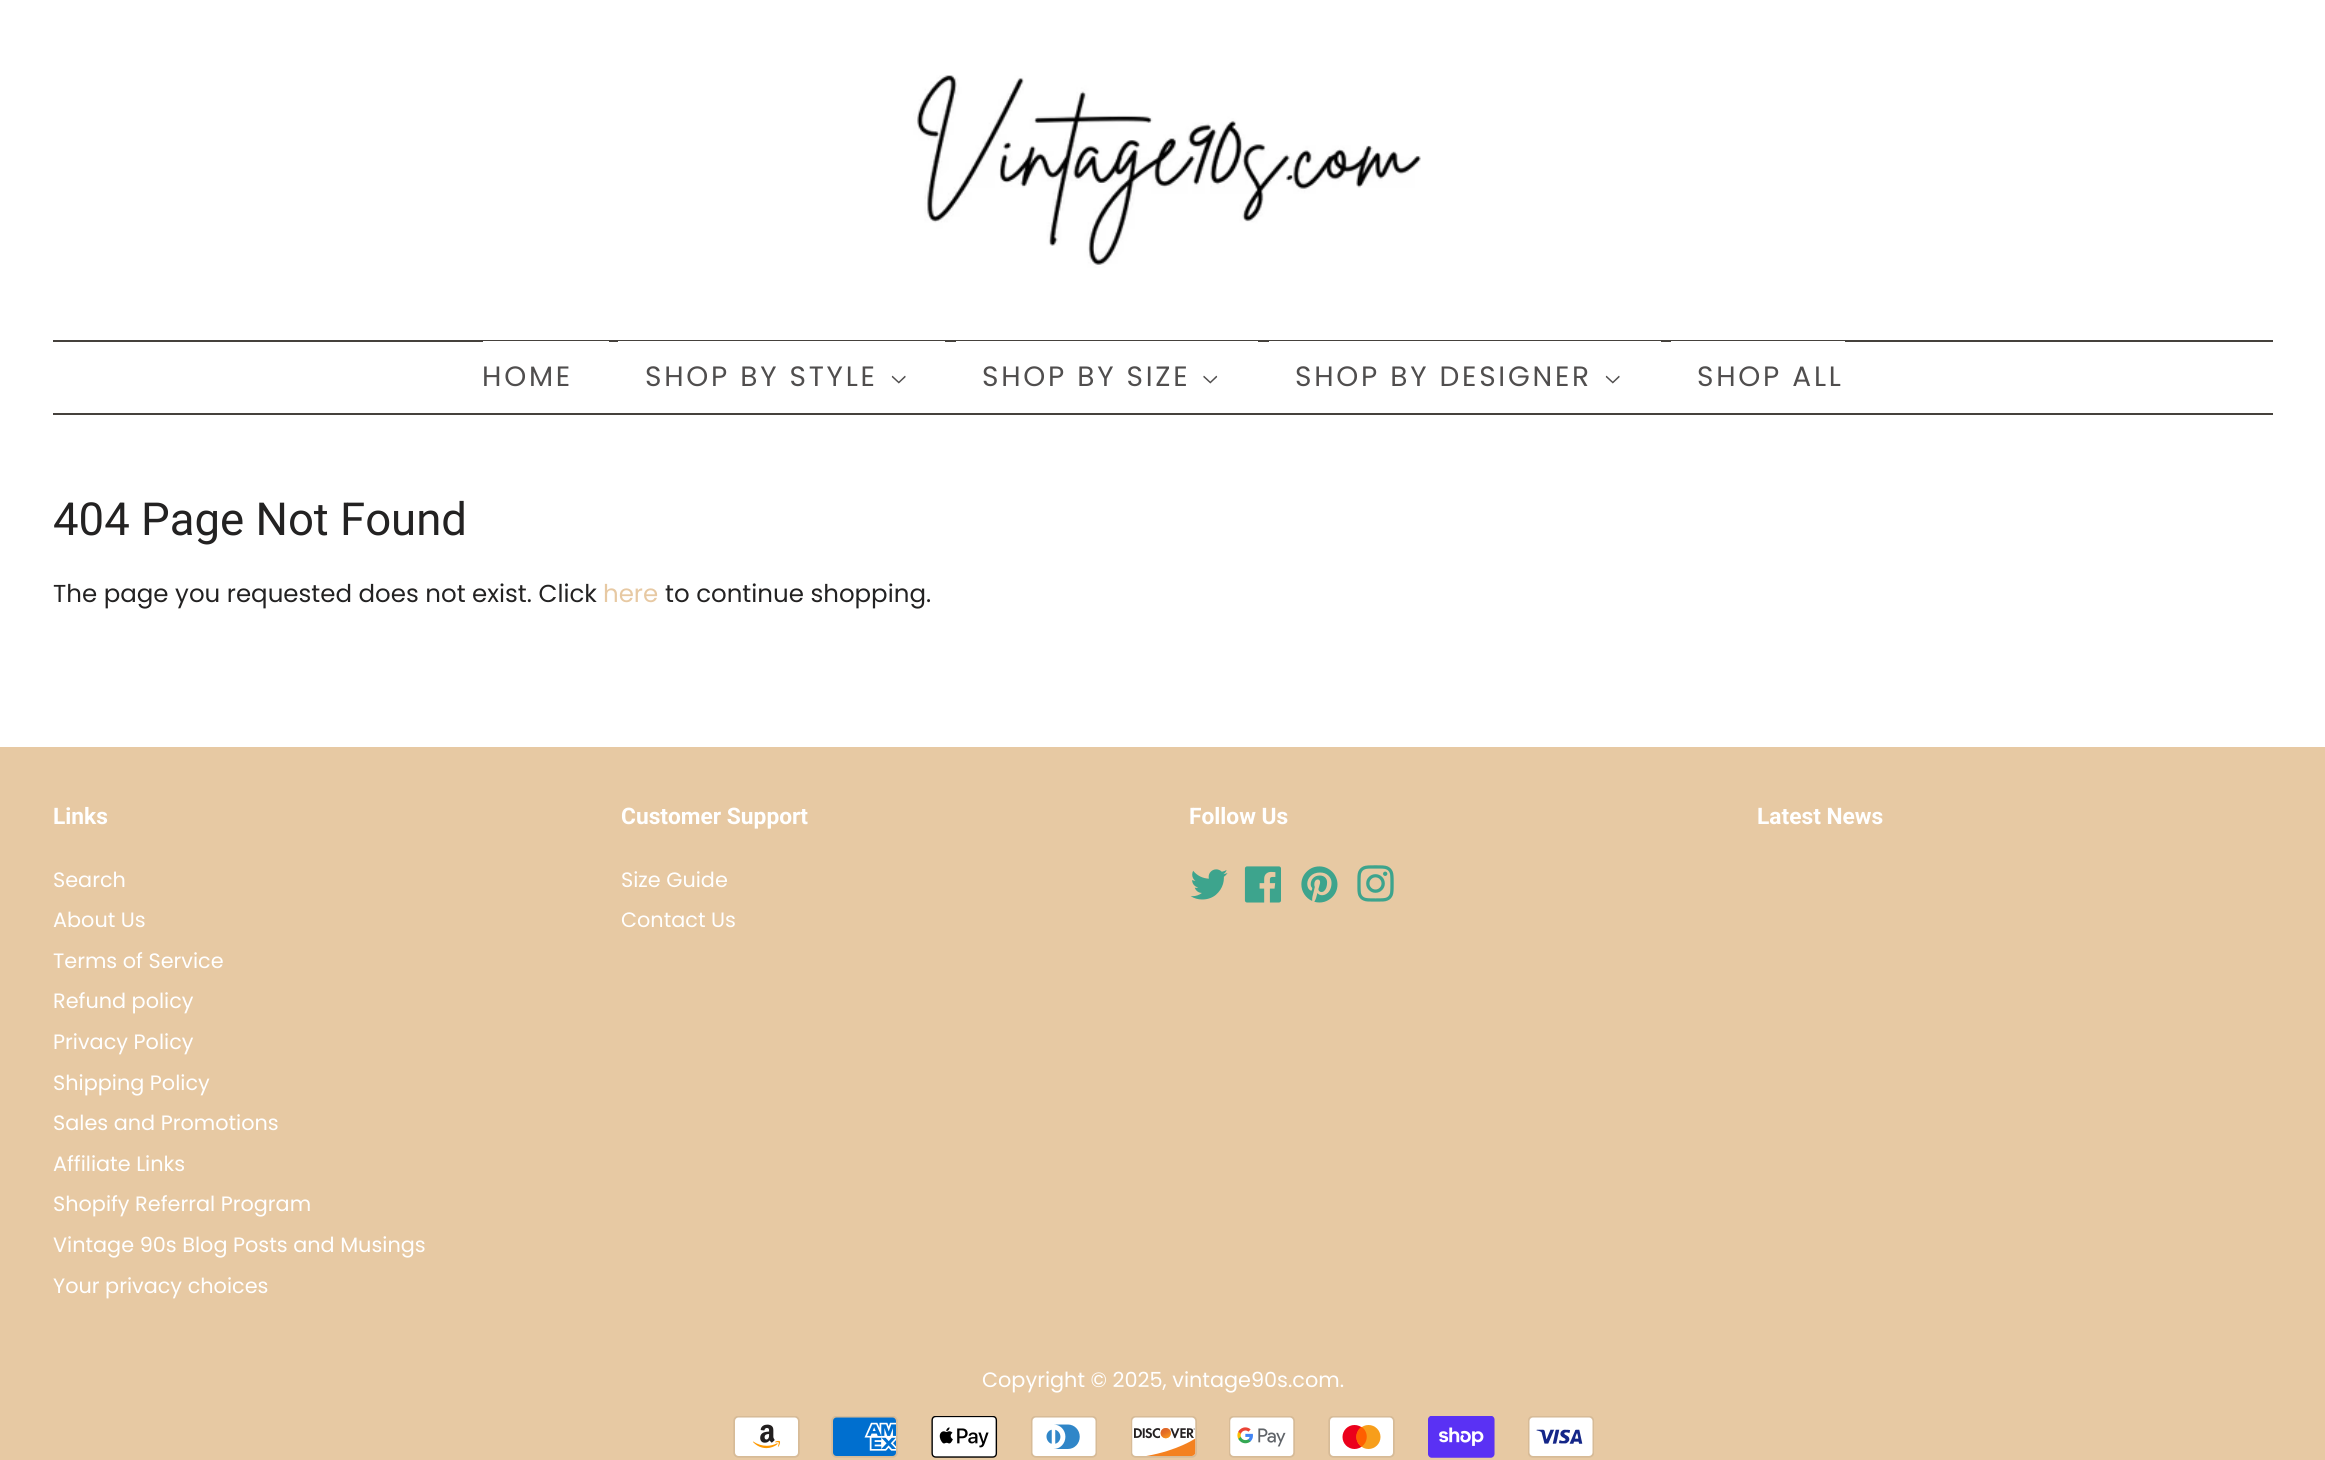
import math
import cairo

surface = cairo.ImageSurface(cairo.FORMAT_RGB24, 2325, 1460)
c = cairo.Context(surface)
options = cairo.FontOptions()
options.set_hint_metrics(cairo.HINT_METRICS_OFF)
options.set_hint_style(cairo.HINT_STYLE_NONE)
c.set_font_options(options)
c.set_miter_limit(4)
def C(code):
 c.set_source_rgb(*(v / 255 for v in bytes.fromhex(code[-6:])))
def F(family, size, italic, bold):
 c.select_font_face(family, cairo.FONT_SLANT_ITALIC if italic else cairo.FONT_SLANT_NORMAL, cairo.FONT_WEIGHT_BOLD if bold else cairo.FONT_WEIGHT_NORMAL)
 c.set_font_size(size)
def T(x, y, s):
 c.move_to(x, y)
 c.show_text(s)
def L(x, y, s, letter, word):
 c.move_to(x, y)
 for ch in s:
  c.show_text(ch)
  c.rel_move_to(letter + word * (ch == ' '), 0)
def R(x, y, w, h):
 c.rectangle(x, y, w, h)
 c.fill()
def I(path, x, y, w, h):
 c.save()
 c.set_source_surface(cairo.ImageSurface.create_from_png(path), x, y)
 c.rectangle(x, y, w, h)
 c.fill()
 c.restore()
C('ffffff')
c.paint()
I('1.png',913,75,508,193)
C('45413c')
R(53,340,2220,2)
R(53,413,2220,2)
C('ffffff')
R(483,341,126,1)
F('Poppins',28,0,0)
C('504e4e')
L(482,386,'HOME',2.75,0)
C('ffffff')
R(618,341,327,1)
C('504e4e')
L(645,386,'SHOP BY STYLE',2.75,0)
I('2.png',891,375,15,9)
C('ffffff')
R(956,341,302,1)
C('504e4e')
L(982,386,'SHOP BY SIZE',2.75,0)
I('3.png',1203,375,15,9)
C('ffffff')
R(1269,341,392,1)
C('504e4e')
L(1295,386,'SHOP BY DESIGNER',2.75,0)
I('2.png',1605,375,15,9)
C('ffffff')
R(1671,341,174,1)
C('504e4e')
L(1697,386,'SHOP ALL',2.75,0)
F('Roboto',45.5,0,0)
C('232222')
T(53,535,'404 Page Not Found')
F('Poppins',24.5,0,0)
T(53,602,'The page you requested does not exist. Click')
C('e7c9a3')
T(603,602,'here')
C('232222')
T(665,602,'to continue shopping.')
C('e7c9a3')
R(0,747,2325,713)
F('Roboto',22.75,0,1)
C('ffffff')
T(53,824,'Links')
F('Poppins',20.8,0,0)
T(53,887,'Search')
T(53,927,'About Us')
T(53,968,'Terms of Service')
T(53,1008,'Refund policy')
T(53,1049,'Privacy Policy')
T(53,1090,'Shipping Policy')
T(53,1130,'Sales and Promotions')
T(53,1171,'Affiliate Links')
T(53,1211,'Shopify Referral Program')
T(53,1252,'Vintage 90s Blog Posts and Musings')
T(53,1293,'Your privacy choices')
F('Roboto',22.75,0,1)
T(621,824,'Customer Support')
F('Poppins',20.8,0,0)
T(621,887,'Size Guide')
T(621,927,'Contact Us')
F('Roboto',22.75,0,1)
T(1189,824,'Follow Us')
I('4.png',1190,869,38,31)
I('5.png',1244,866,37,37)
I('6.png',1301,866,37,37)
I('7.png',1357,865,37,37)
T(1757,824,'Latest News')
F('Poppins',20.8,0,0)
T(982,1387,'Copyright © 2025, vintage90s.com.')
I('8.png',733,1416,67,42)
I('9.png',831,1416,67,42)
I('10.png',931,1416,67,42)
I('11.png',1031,1416,66,42)
I('12.png',1131,1416,66,42)
I('13.png',1229,1416,66,42)
I('14.png',1328,1416,67,42)
I('15.png',1428,1416,67,42)
I('16.png',1528,1416,66,42)
surface.write_to_png('o.png')
